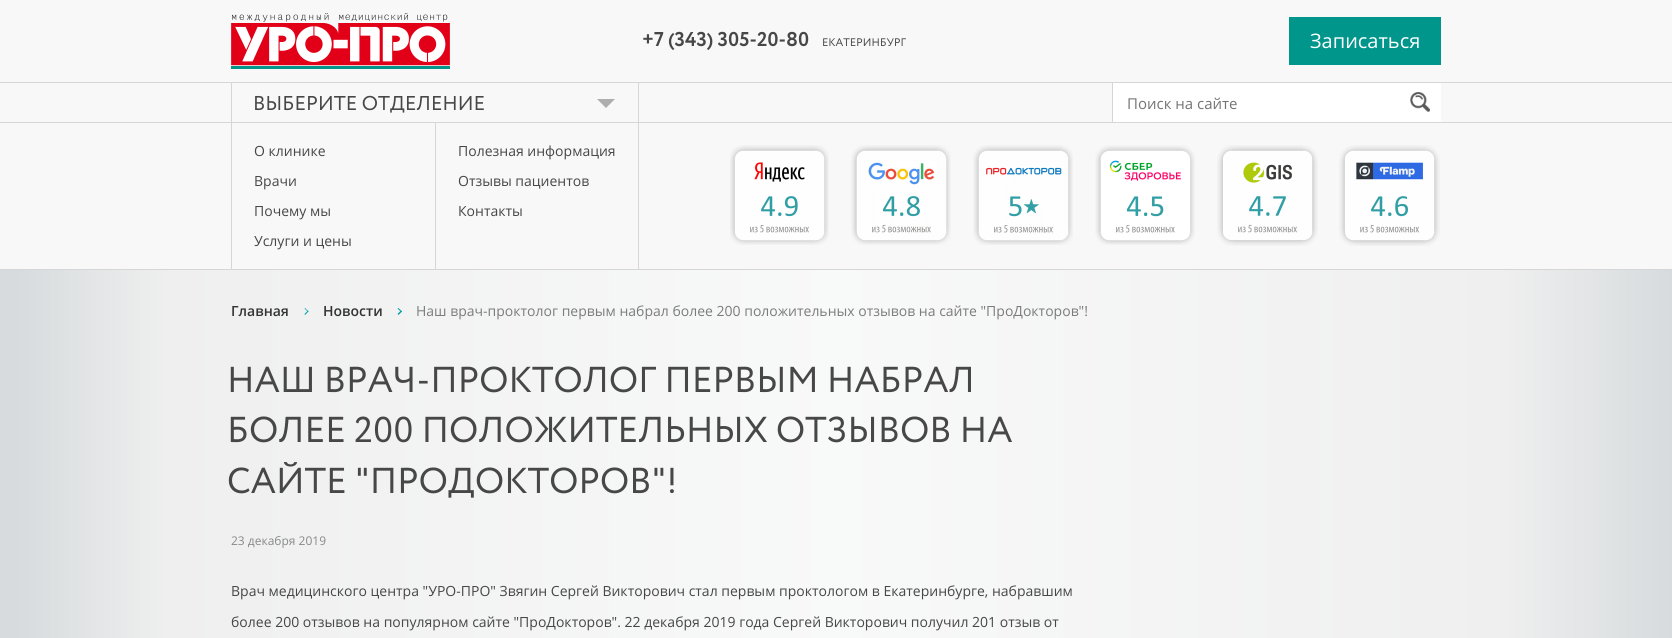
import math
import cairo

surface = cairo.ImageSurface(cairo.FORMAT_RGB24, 1672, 638)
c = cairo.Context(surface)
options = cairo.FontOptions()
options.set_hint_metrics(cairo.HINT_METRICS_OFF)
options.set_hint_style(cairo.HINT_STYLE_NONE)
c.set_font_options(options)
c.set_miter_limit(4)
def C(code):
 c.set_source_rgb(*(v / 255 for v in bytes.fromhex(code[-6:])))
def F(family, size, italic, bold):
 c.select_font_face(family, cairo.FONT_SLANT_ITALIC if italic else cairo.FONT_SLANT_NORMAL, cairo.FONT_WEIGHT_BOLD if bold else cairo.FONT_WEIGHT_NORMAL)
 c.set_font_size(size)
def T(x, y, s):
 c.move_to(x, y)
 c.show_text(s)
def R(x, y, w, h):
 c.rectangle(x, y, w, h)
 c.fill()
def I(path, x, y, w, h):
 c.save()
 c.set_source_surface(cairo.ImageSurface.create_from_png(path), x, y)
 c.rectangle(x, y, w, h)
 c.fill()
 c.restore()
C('f8f8f8')
c.paint()
C('d6d6d6')
R(0,82,1672,1)
I('1.png',231,13,219,56)
I('2.png',643,31,166,19)
I('3.png',823,38,83,9)
C('00968c')
R(1289,17,152,48)
F('Open Sans',20,0,0)
C('ffffff')
T(1310,48,'Записаться')
C('d6d6d6')
R(0,122,1672,1)
R(638,83,1,39)
R(231,83,1,39)
I('4.png',255,95,229,18)
C('aeaeae')
c.new_path()
c.move_to(597,99)
c.line_to(615,99)
c.line_to(606,108)
c.close_path()
c.fill()
C('d6d6d6')
R(1112,83,1,39)
C('ffffff')
R(1113,83,328,39)
F('Open Sans',15,0,0)
C('757575')
T(1127,109,'Поиск на сайте')
I('5.png',1410,92,20,20)
C('d6d6d6')
R(0,269,1672,1)
R(638,123,1,146)
R(231,123,1,146)
F('Open Sans',14,0,0)
C('474747')
T(254,156,'О клинике')
T(254,186,'Врачи')
T(254,216,'Почему мы')
T(254,246,'Услуги и цены')
C('d6d6d6')
R(435,123,1,146)
C('474747')
T(458,156,'Полезная информация')
T(458,186,'Отзывы пациентов')
T(458,216,'Контакты')
I('6.png',730,145,99,100)
I('7.png',851,145,100,100)
I('8.png',973,145,100,100)
I('9.png',1095,145,100,100)
I('10.png',1217,145,101,101)
I('11.png',1339,145,101,101)
gradient = cairo.LinearGradient(0,615,1672,615)
gradient.add_color_stop_rgba(.01,0.843,0.859,0.867,1)
gradient.add_color_stop_rgba(.1,0.937,0.937,0.937,1)
gradient.add_color_stop_rgba(.5,0.973,0.976,0.976,1)
gradient.add_color_stop_rgba(.9,0.937,0.937,0.937,1)
gradient.add_color_stop_rgba(1,0.843,0.859,0.867,1)
c.set_source(gradient)
R(0,270,1672,368)
F('Open Sans SemiBold',14,0,0)
C('333333')
T(231,316,'Главная')
C('00a1a3')
c.new_path()
c.move_to(305,308)
c.line_to(308.5,311.5)
c.line_to(308,312)
c.line_to(304.5,308.5)
c.close_path()
c.fill()
c.new_path()
c.move_to(308,310.5)
c.line_to(308.5,311.5)
c.line_to(305,315)
c.line_to(304.5,314)
c.close_path()
c.fill()
C('333333')
T(323,316,'Новости')
C('00a1a3')
c.new_path()
c.move_to(398.5,308)
c.line_to(402,311.5)
c.line_to(401,312)
c.line_to(397.5,308.5)
c.close_path()
c.fill()
c.new_path()
c.move_to(401,310.5)
c.line_to(402,311.5)
c.line_to(398.5,315)
c.line_to(397.5,314)
c.close_path()
c.fill()
F('Open Sans',14,0,0)
C('7c7c7c')
T(416,316,'Наш врач-проктолог первым набрал более 200 положительных отзывов на сайте "ПроДокторов"!')
I('12.png',230,366,741,27)
I('13.png',230,416,782,27)
I('14.png',228,462,446,36)
F('Open Sans',12,0,0)
C('898989')
T(231,545,'23 декабря 2019')
F('Open Sans',14,0,0)
C('474747')
T(231,596,'Врач медицинского центра "УРО-ПРО" Звягин Сергей Викторович стал первым проктологом в Екатеринбурге, набравшим')
T(231,627,'более 200 отзывов на популярном сайте "ПроДокторов". 22 декабря 2019 года Сергей Викторович получил 201 отзыв от')
surface.write_to_png('o.png')
